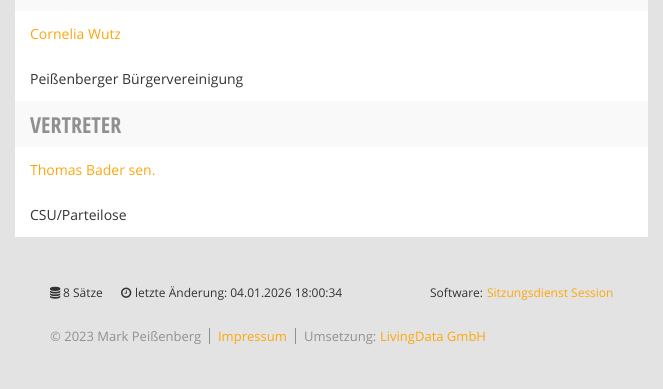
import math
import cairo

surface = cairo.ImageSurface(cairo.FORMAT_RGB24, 663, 389)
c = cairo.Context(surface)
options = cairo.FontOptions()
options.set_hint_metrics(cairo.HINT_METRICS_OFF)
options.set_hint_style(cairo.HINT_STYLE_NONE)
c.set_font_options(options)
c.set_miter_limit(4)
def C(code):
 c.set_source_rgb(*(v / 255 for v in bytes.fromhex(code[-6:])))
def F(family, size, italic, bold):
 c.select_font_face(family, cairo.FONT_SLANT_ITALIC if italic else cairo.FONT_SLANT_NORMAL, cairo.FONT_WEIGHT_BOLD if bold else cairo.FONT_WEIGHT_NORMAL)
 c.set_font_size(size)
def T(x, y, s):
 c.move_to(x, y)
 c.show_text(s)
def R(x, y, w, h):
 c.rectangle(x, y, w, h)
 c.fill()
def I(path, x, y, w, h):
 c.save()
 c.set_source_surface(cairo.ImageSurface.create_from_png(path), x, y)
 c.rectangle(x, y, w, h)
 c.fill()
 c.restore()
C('e3e3e3')
c.paint()
C('ffffff')
R(15,11,633,226)
C('f9f9f9')
R(15,0,633,11)
F('Open Sans',14,0,0)
C('fda70e')
T(30,39,'Cornelia Wutz')
C('333333')
T(30,84,'Peißenberger Bürgervereinigung')
C('f9f9f9')
R(15,101,633,46)
F('Open Sans Condensed',22,0,1)
C('909090')
T(30,133,'VERTRETER')
F('Open Sans',14,0,0)
C('fda70e')
T(30,175,'Thomas Bader sen.')
C('333333')
T(30,220,'CSU/Parteilose')
I('1.png',50,286,11,13)
F('Open Sans',12,0,0)
T(63,297,'8 Sätze')
I('2.png',121,287,11,11)
T(135,297,'letzte Änderung: 04.01.2026 18:00:34')
T(430,297,'Software:')
C('fda70e')
T(487,297,'Sitzungsdienst Session')
F('Open Sans',13,0,0)
C('909090')
T(50,341,'© 2023 Mark Peißenberg')
R(209,328,1,16)
C('fda70e')
T(218,341,'Impressum')
C('909090')
R(295,328,1,16)
T(304,341,'Umsetzung:')
C('fda70e')
T(380,341,'LivingData GmbH')
surface.write_to_png('o.png')
